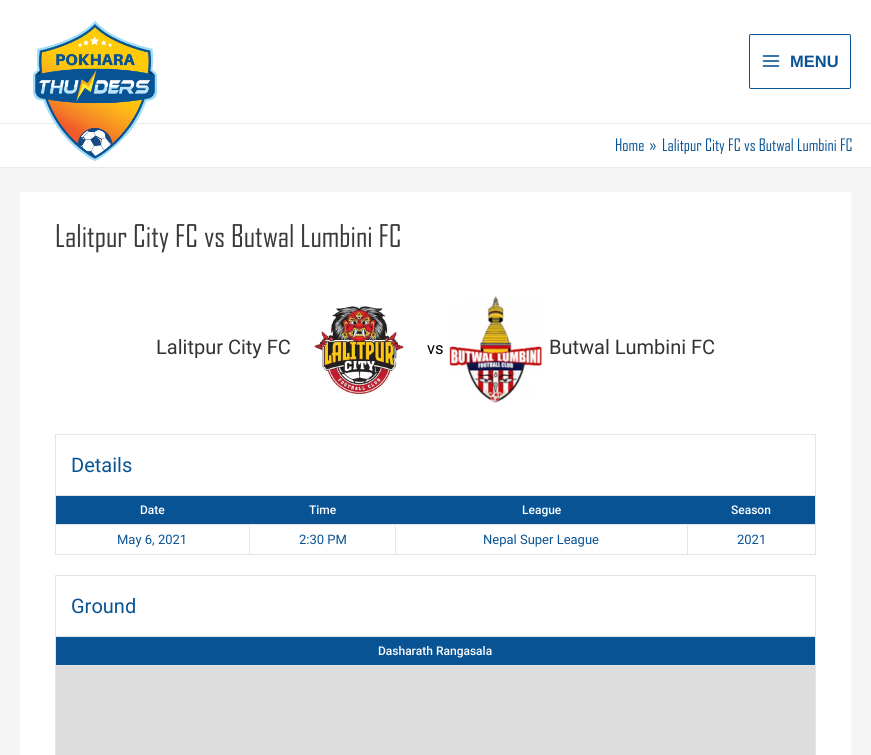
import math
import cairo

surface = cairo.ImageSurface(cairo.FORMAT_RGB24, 871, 755)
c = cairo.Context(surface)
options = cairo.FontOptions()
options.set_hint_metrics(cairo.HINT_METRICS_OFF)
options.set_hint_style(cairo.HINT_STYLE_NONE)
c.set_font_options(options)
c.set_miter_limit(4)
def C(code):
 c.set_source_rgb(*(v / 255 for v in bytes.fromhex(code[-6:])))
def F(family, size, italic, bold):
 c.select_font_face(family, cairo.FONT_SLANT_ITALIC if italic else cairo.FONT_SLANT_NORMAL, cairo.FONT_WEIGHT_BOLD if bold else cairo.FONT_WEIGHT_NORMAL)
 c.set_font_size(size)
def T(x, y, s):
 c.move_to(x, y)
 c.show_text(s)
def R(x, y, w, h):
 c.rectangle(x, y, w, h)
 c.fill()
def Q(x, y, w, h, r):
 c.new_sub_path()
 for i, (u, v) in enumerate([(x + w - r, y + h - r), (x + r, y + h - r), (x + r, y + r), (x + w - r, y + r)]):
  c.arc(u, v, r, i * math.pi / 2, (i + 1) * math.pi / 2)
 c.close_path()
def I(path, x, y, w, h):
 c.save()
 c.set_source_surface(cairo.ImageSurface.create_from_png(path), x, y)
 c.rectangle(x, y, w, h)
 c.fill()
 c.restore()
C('f5f5f5')
c.paint()
C('ffffff')
R(0,0,871,123)
C('eaeaea')
R(0,123,871,1)
C('ffffff')
R(0,124,871,43)
I('1.png',33,21,124,140)
Q(749.5,34.5,101,54,1.5)
C('085393')
c.set_line_width(1)
c.stroke()
I('2.png',762,55,18,12)
F('Liberation Sans',16.5,0,1)
T(790,67,'MENU')
C('eaeaea')
R(0,167,871,1)
F('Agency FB',16.5,0,0)
C('085393')
T(615,151,'Home')
T(649,151,'»')
T(662,151,'Lalitpur City FC vs Butwal Lumbini FC')
C('ffffff')
R(20,192,831,563)
F('Agency FB',30,0,0)
C('3a3a3a')
T(55,247,'Lalitpur City FC vs Butwal Lumbini FC')
F('Roboto',20,0,0)
C('333333')
T(156,354,'Lalitpur City FC')
I('3.png',314,305,90,90)
F('Roboto',16.5,0,0)
C('000000')
T(427,354,'vs')
I('4.png',449,296,94,107)
F('Roboto',20,0,0)
C('333333')
T(549,354,'Butwal Lumbini FC')
C('e5e5e5')
R(55,434,761,1)
R(815,434,1,61)
R(55,434,1,61)
C('085393')
T(71,472,'Details')
C('e5e5e5')
R(55,495,761,1)
R(815,495,1,60)
R(55,554,761,1)
R(55,495,1,60)
C('085393')
R(56,496,759,28)
F('Roboto Medium',12,0,0)
C('ffffff')
T(140,514,'Date')
T(309,514,'Time')
T(522,514,'League')
T(731,514,'Season')
C('e5e5e5')
R(687,524,129,1)
R(687,524,1,31)
R(395,524,293,1)
R(395,524,1,31)
R(249,524,147,1)
R(249,524,1,31)
R(55,524,195,1)
F('Roboto',13,0,0)
C('085393')
T(117,544,'May 6, 2021')
T(299,544,'2:30 PM')
T(483,544,'Nepal Super League')
T(737,544,'2021')
C('e5e5e5')
R(55,575,761,1)
R(815,575,1,61)
R(55,575,1,61)
F('Roboto',20,0,0)
C('085393')
T(71,613,'Ground')
C('e5e5e5')
R(55,636,761,1)
R(815,636,1,119)
R(55,636,1,119)
C('085393')
R(56,637,759,28)
F('Roboto Medium',12,0,0)
C('ffffff')
T(378,655,'Dasharath Rangasala')
C('e5e5e5')
R(55,665,761,1)
C('dddddd')
R(56,666,759,89)
surface.write_to_png('o.png')
